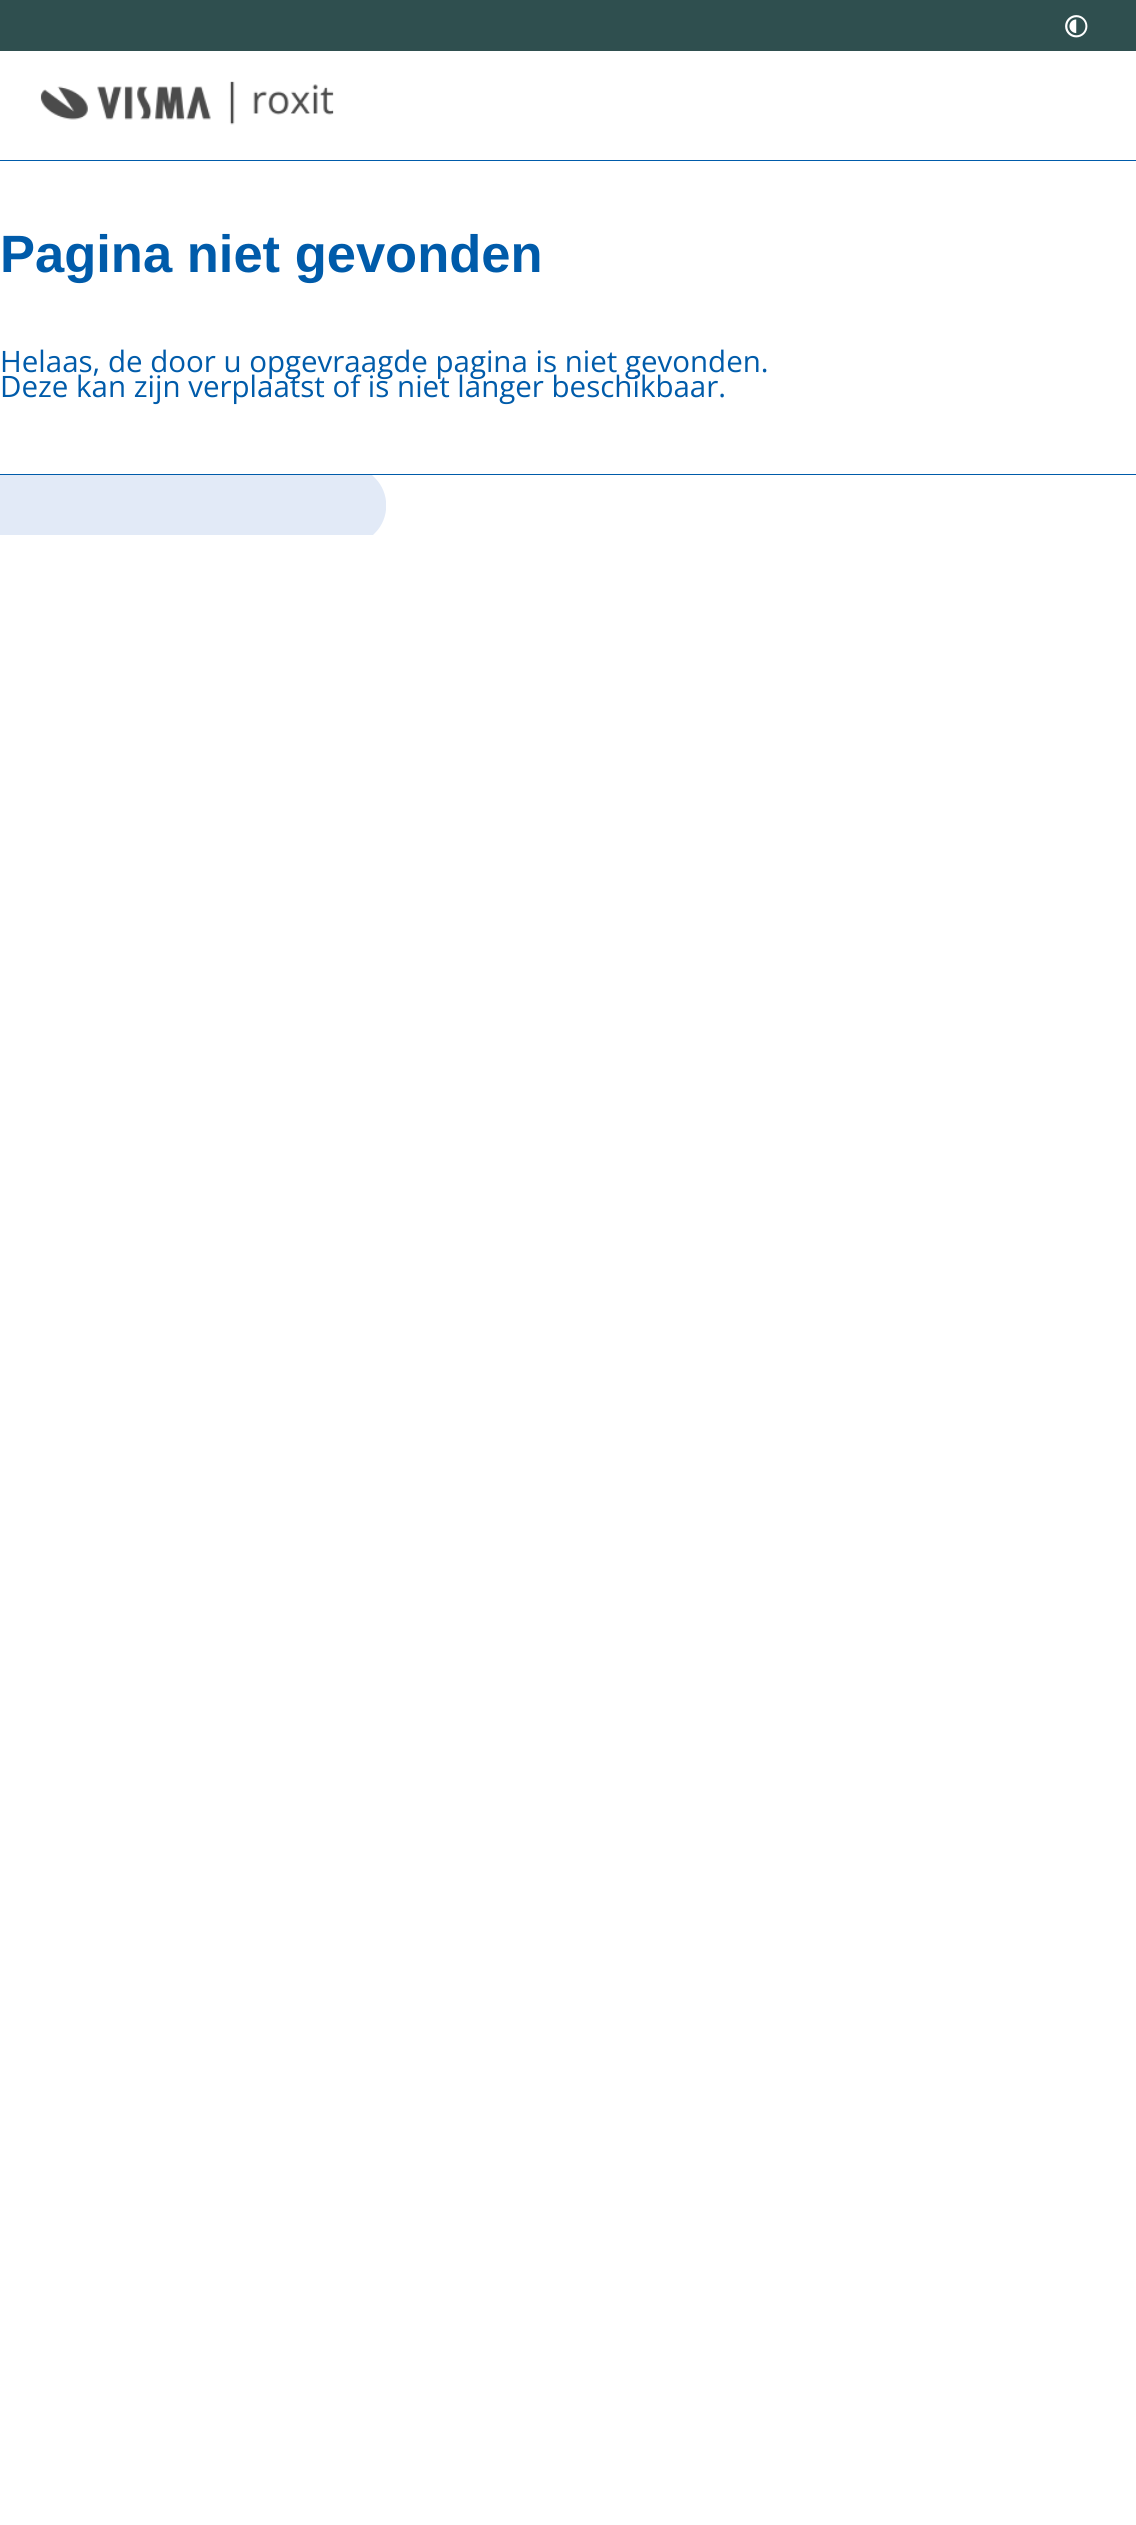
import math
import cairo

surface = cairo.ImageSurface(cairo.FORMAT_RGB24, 1136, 2525)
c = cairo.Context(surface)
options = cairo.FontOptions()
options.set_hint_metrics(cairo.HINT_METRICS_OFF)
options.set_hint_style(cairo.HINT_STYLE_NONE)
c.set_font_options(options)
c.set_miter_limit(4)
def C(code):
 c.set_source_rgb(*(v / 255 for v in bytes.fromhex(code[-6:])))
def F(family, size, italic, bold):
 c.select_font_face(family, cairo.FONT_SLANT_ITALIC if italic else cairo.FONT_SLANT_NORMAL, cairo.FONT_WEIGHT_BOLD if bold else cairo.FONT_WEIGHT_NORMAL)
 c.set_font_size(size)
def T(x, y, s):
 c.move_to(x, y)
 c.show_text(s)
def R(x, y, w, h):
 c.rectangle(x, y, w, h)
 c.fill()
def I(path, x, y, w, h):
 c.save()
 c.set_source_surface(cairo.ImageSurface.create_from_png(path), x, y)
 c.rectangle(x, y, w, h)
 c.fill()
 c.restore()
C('ffffff')
c.paint()
C('005baa')
R(0,160,1136,1)
C('2f4f4f')
R(0,0,1136,51)
I('1.png',1065,15,23,23)
I('2.png',40,81,294,44)
F('Liberation Sans',52.5,0,1)
C('005baa')
T(0,272,'Pagina niet gevonden')
F('Open Sans',29.5,0,0)
T(0,372,'Helaas, de door u opgevraagde pagina is niet gevonden.')
T(0,397,'Deze kan zijn verplaatst of is niet langer beschikbaar.')
c.save()
c.rectangle(0,474,386,61)
c.clip()
C('e2eaf7')
c.new_path()
c.move_to(41,199)
c.curve_to(56,184,80,184,95,199)
c.line_to(375,478)
c.curve_to(390,493,390,518,375,533)
c.line_to(95,813)
c.curve_to(80,828,56,828,41,813)
c.line_to(-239,533)
c.curve_to(-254,518,-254,493,-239,478)
c.close_path()
c.fill()
c.restore()
R(0,474,1136,1)
surface.write_to_png('o.png')
